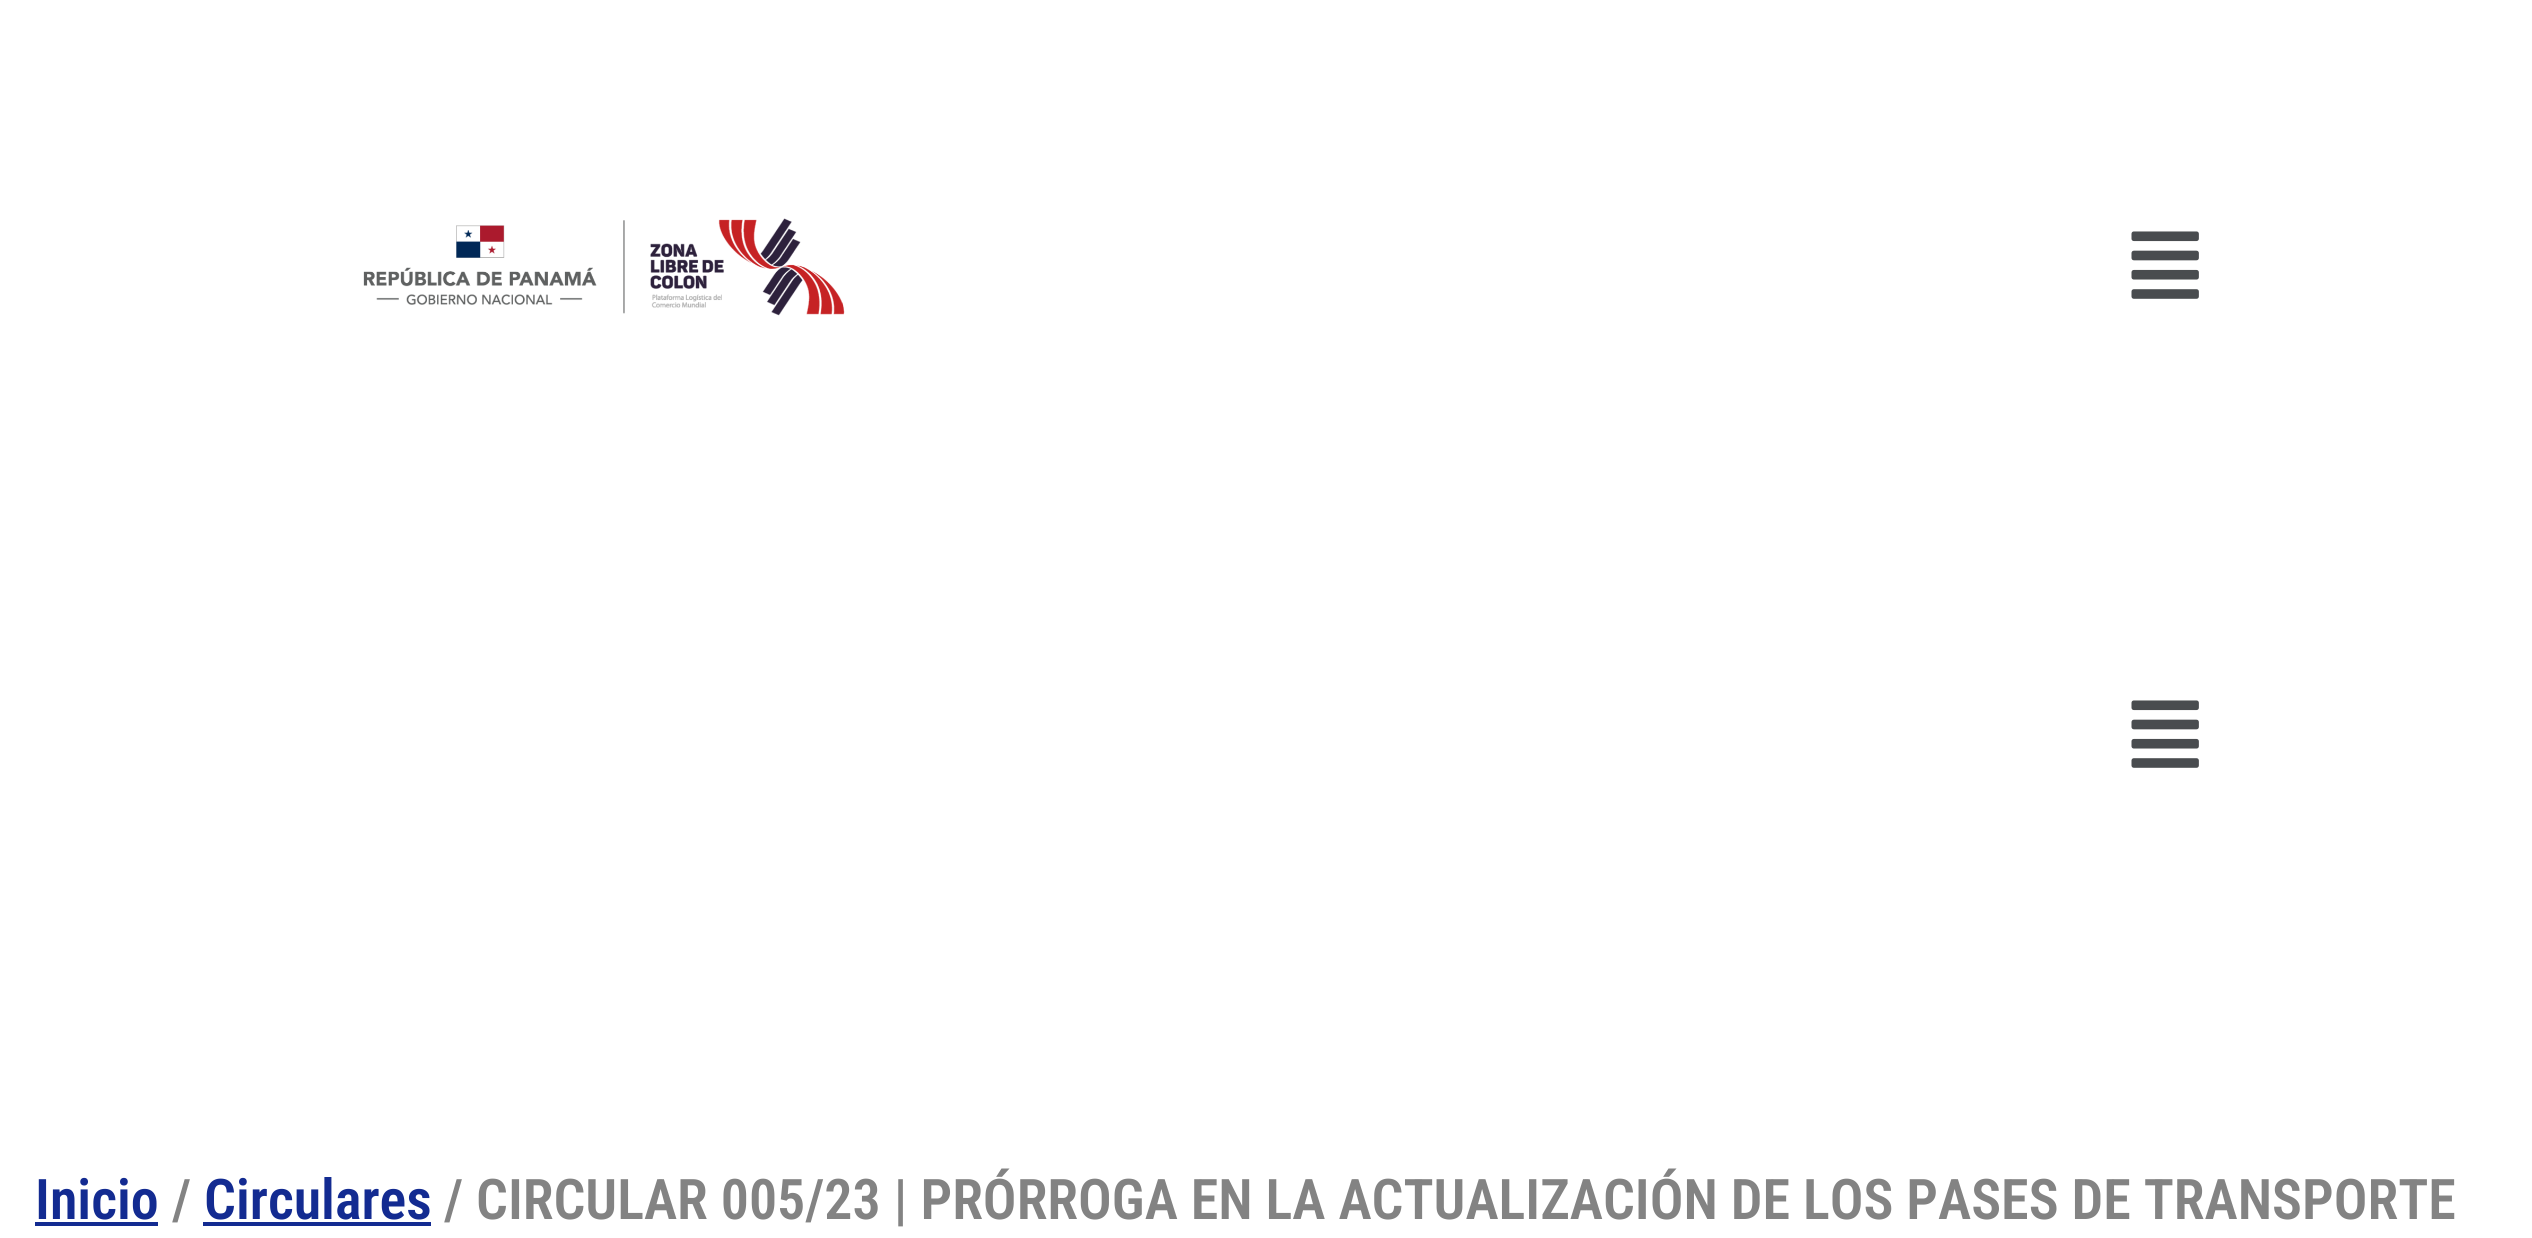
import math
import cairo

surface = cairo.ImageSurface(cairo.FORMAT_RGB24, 2532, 1238)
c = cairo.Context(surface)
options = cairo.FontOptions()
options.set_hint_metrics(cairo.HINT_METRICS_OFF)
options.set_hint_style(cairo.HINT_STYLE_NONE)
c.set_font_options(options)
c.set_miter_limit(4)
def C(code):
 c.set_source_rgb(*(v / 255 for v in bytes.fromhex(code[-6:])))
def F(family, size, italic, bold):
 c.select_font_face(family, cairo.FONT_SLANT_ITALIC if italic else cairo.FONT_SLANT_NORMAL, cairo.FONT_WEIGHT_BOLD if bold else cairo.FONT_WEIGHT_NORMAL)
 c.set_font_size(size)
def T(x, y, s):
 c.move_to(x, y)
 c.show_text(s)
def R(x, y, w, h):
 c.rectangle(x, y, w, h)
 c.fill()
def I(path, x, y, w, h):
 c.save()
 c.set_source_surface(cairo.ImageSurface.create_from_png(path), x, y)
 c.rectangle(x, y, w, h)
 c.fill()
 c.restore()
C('ffffff')
c.paint()
I('1.png',363,218,482,98)
I('2.png',2131,231,68,68)
I('2.png',2131,700,68,68)
F('Roboto Condensed SemiBold',56,0,0)
C('132b91')
T(35,1219,'Inicio')
R(35,1222,123,4)
C('838383')
T(172,1219,'/')
C('132b91')
T(204,1219,'Circulares')
R(203,1222,228,4)
C('838383')
T(444,1219,'/ CIRCULAR 005/23 | PRÓRROGA EN LA ACTUALIZACIÓN DE LOS PASES DE TRANSPORTE')
surface.write_to_png('o.png')
